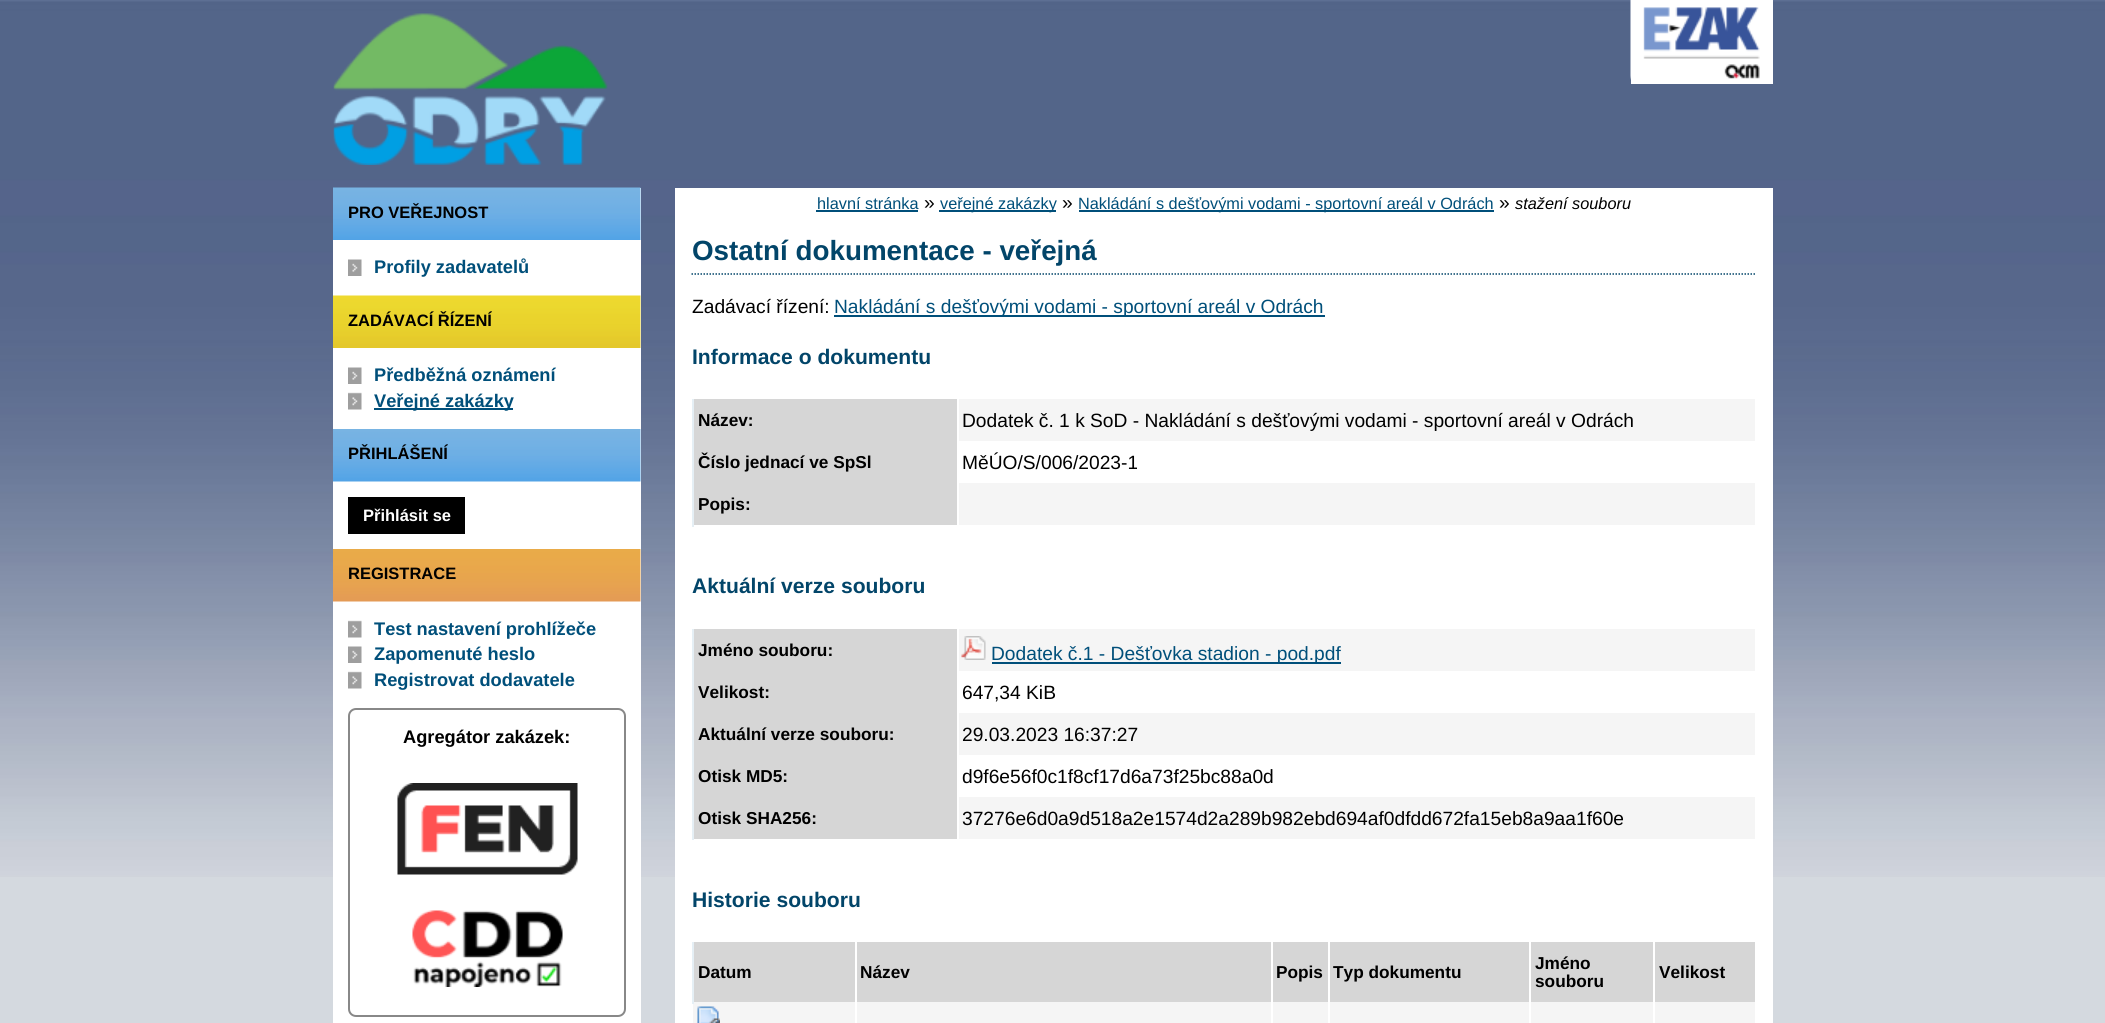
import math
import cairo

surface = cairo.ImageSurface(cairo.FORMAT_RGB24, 2105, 1023)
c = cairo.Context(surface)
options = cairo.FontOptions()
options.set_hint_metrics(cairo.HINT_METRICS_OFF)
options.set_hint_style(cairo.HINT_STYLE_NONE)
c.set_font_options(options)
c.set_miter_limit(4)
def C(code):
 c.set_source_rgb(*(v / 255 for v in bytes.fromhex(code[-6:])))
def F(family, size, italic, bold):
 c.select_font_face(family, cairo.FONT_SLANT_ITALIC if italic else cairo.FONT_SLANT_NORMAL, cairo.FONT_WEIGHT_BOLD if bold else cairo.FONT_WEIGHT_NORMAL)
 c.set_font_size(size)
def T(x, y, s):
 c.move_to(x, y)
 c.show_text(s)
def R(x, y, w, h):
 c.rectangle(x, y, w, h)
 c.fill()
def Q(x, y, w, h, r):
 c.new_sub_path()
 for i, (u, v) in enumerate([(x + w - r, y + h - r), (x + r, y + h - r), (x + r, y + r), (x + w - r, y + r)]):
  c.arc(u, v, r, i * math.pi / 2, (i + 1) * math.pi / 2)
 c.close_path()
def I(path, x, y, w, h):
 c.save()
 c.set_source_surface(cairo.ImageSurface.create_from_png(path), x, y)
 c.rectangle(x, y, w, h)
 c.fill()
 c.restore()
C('d4d9df')
c.paint()
I('1.png',0,0,2105,877)
I('2.png',333,13,275,152)
C('ffffff')
R(1631,0,142,84)
I('3.png',1630,0,130,80)
R(333,188,308,835)
I('4.png',333,187,308,53)
F('Liberation Sans',16.5,0,1)
C('000000')
T(348,218,'PRO VEŘEJNOST')
I('5.png',348,259,14,17)
F('Liberation Sans',18.25,0,1)
C('004f7a')
T(374,273,'Profily zadavatelů')
I('6.png',333,295,308,53)
F('Liberation Sans',16.5,0,1)
C('000000')
T(348,326,'ZADÁVACÍ ŘÍZENÍ')
I('5.png',348,367,14,17)
F('Liberation Sans',18.25,0,1)
C('004f7a')
T(374,381,'Předběžná oznámení')
I('7.png',348,392,14,18)
R(374,408,139,2)
T(374,407,'Veřejné zakázky')
I('8.png',333,429,308,53)
F('Liberation Sans',16.5,0,1)
C('000000')
T(348,459,'PŘIHLÁŠENÍ')
R(348,497,117,37)
C('ffffff')
T(363,521,'Přihlásit se')
I('9.png',333,549,308,53)
C('000000')
T(348,579,'REGISTRACE')
I('7.png',348,620,14,18)
F('Liberation Sans',18.25,0,1)
C('004f7a')
T(374,635,'Test nastavení prohlížeče')
I('5.png',348,646,14,17)
T(374,660,'Zapomenuté heslo')
I('7.png',348,671,14,18)
T(374,686,'Registrovat dodavatele')
Q(349,709,276,307,7)
C('888888')
c.stroke()
C('000000')
T(403,743,'Agregátor zakázek:')
I('10.png',397,783,181,92)
I('11.png',412,910,151,77)
C('ffffff')
R(675,188,1098,835)
F('Liberation Sans',16.3,0,0)
C('004f7a')
T(817,209,'hlavní stránka')
R(816,210,102,2)
F('Liberation Sans',19.2,0,0)
C('000000')
T(924,209,'»')
C('004f7a')
R(939,210,117,2)
F('Liberation Sans',16.3,0,0)
T(940,209,'veřejné zakázky')
F('Liberation Sans',19.2,0,0)
C('000000')
T(1062,209,'»')
C('004f7a')
R(1079,210,415,2)
F('Liberation Sans',16.3,0,0)
T(1078,209,'Nakládání s dešťovými vodami - sportovní areál v Odrách')
F('Liberation Sans',19.2,0,0)
C('000000')
T(1499,209,'»')
F('Liberation Sans',16.3,1,0)
T(1515,209,'stažení souboru')
c.new_path()
c.move_to(691.5,274)
c.line_to(1756.5,274)
C('024569')
c.set_line_width(1.5)
c.set_dash([1.5,1.5])
c.stroke()
F('Liberation Sans',27.8,0,1)
T(692,260,'Ostatní dokumentace - veřejná')
F('Liberation Sans',19.2,0,0)
C('000000')
T(692,313,'Zadávací řízení:')
C('004f7a')
R(834,315,491,2)
T(834,313,'Nakládání s dešťovými vodami - sportovní areál v Odrách')
F('Liberation Sans',21.1,0,1)
C('024569')
T(692,364,'Informace o dokumentu')
C('f5f5f5')
R(959,399,796,42)
C('d6d6d6')
R(694,399,263,126)
F('Liberation Sans',17.25,0,1)
C('000000')
T(698,426,'Název:')
F('Liberation Sans',19.2,0,0)
T(962,427,'Dodatek č. 1 k SoD - Nakládání s dešťovými vodami - sportovní areál v Odrách')
F('Liberation Sans',17.25,0,1)
T(698,468,'Číslo jednací ve SpSl')
F('Liberation Sans',19.2,0,0)
T(962,469,'MěÚO/S/006/2023-1')
C('f5f5f5')
R(959,483,796,42)
C('e5eff5')
R(692,399,2,128)
F('Liberation Sans',17.25,0,1)
C('000000')
T(698,510,'Popis:')
F('Liberation Sans',21.1,0,1)
C('024569')
T(692,593,'Aktuální verze souboru')
C('f5f5f5')
R(959,629,796,42)
C('d6d6d6')
R(694,629,263,210)
F('Liberation Sans',17.25,0,1)
C('000000')
T(698,656,'Jméno souboru:')
I('12.png',961,636,25,24)
C('004f7a')
R(992,662,349,2)
F('Liberation Sans',19.2,0,0)
T(991,660,'Dodatek č.1 - Dešťovka stadion - pod.pdf')
F('Liberation Sans',17.25,0,1)
C('000000')
T(698,698,'Velikost:')
F('Liberation Sans',19.2,0,0)
T(962,699,'647,34 KiB')
C('f5f5f5')
R(959,713,796,42)
F('Liberation Sans',17.25,0,1)
C('000000')
T(698,740,'Aktuální verze souboru:')
F('Liberation Sans',19.2,0,0)
T(962,741,'29.03.2023 16:37:27')
F('Liberation Sans',17.25,0,1)
T(698,782,'Otisk MD5:')
F('Liberation Sans',19.2,0,0)
T(962,783,'d9f6e56f0c1f8cf17d6a73f25bc88a0d')
C('f5f5f5')
R(959,797,796,42)
C('e5eff5')
R(692,629,2,211)
F('Liberation Sans',17.25,0,1)
C('000000')
T(698,824,'Otisk SHA256:')
F('Liberation Sans',19.2,0,0)
T(962,825,'37276e6d0a9d518a2e1574d2a289b982ebd694af0dfdd672fa15eb8a9aa1f60e')
F('Liberation Sans',21.1,0,1)
C('024569')
T(692,907,'Historie souboru')
C('d6d6d6')
R(694,942,161,60)
C('f5f5f5')
R(693,1002,1062,21)
C('e5eff5')
R(692,942,2,62)
F('Liberation Sans',17.25,0,1)
C('000000')
T(698,978,'Datum')
C('d6d6d6')
R(857,942,414,60)
C('000000')
T(860,978,'Název')
C('d6d6d6')
R(1273,942,55,60)
C('000000')
T(1276,978,'Popis')
C('d6d6d6')
R(1330,942,199,60)
C('000000')
T(1333,978,'Typ dokumentu')
C('d6d6d6')
R(1531,942,122,60)
C('000000')
T(1535,969,'Jméno')
T(1535,987,'souboru')
C('d6d6d6')
R(1655,942,100,60)
C('000000')
T(1659,978,'Velikost')
C('ffffff')
R(855,1002,2,21)
I('13.png',697,1006,23,17)
R(1271,1002,2,21)
R(1328,1002,2,21)
R(1529,1002,2,21)
R(1653,1002,2,21)
surface.write_to_png('o.png')
